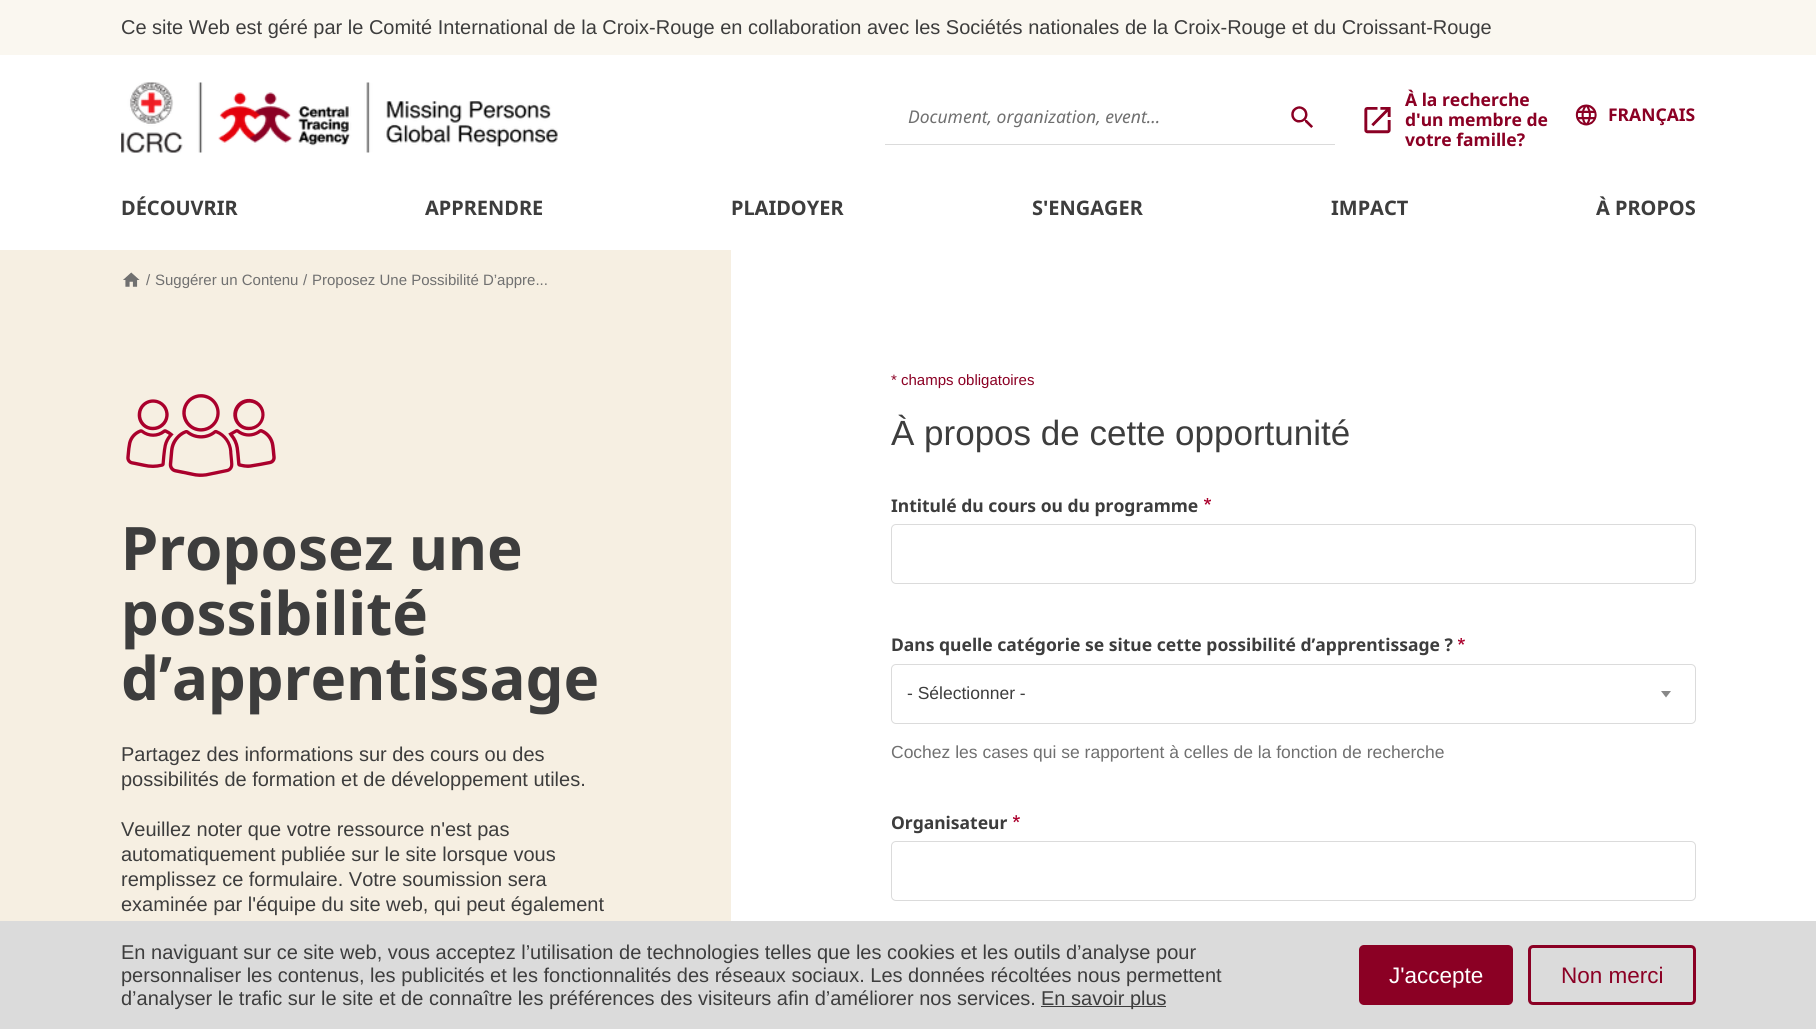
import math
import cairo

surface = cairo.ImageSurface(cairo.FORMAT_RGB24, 1816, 1029)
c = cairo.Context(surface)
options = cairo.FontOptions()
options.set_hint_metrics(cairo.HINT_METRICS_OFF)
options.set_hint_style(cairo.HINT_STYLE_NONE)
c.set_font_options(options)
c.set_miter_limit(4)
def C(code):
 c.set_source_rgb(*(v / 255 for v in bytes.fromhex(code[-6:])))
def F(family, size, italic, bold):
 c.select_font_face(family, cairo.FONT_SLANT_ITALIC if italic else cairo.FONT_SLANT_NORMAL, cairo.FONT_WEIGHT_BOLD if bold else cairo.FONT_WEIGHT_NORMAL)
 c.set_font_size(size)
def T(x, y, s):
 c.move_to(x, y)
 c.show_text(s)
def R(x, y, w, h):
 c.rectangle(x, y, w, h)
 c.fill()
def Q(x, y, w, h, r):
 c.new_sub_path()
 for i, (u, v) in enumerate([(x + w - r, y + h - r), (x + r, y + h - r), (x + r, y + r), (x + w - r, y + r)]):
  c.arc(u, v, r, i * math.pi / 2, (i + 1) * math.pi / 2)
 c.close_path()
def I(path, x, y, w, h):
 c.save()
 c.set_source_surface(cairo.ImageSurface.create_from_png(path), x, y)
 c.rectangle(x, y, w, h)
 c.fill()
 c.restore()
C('ffffff')
c.paint()
C('faf7f0')
R(0,0,1816,55)
F('Liberation Sans',20,0,0)
C('3d3d3d')
T(121,34,'Ce site Web est géré par le Comité International de la Croix-Rouge en collaboration avec les Sociétés nationales de la Croix-Rouge et du Croissant-Rouge')
I('1.png',121,82,437,71)
C('dbdbdb')
R(885,144,450,1)
F('Noto Sans',17.5,1,0)
C('707070')
T(908,123,'Document, organization, event...')
I('2.png',1291,106,22,22)
I('3.png',1364,107,27,27)
F('Noto Sans',17.5,0,1)
C('8b0024')
T(1405,106,'À la recherche')
T(1405,126,'d\'un membre de')
T(1405,146,'votre famille?')
I('4.png',1575,104,22,22)
T(1608,121,'FRANÇAIS')
F('Noto Sans',20,0,1)
C('3d3d3d')
T(121,215,'DÉCOUVRIR')
T(425,215,'APPRENDRE')
T(731,215,'PLAIDOYER')
T(1032,215,'S\'ENGAGER')
T(1331,215,'IMPACT')
T(1596,215,'À PROPOS')
C('f6efe2')
R(0,250,731,671)
I('5.png',123,272,17,15)
F('Liberation Sans',15,0,0)
C('707070')
T(146,285,'/')
T(155,285,'Suggérer un Contenu')
T(303,285,'/')
T(312,285,'Proposez Une Possibilité D’appre...')
I('6.png',126,394,150,83)
F('Noto Sans',60,0,1)
C('3d3d3d')
T(121,570,'Proposez une')
T(121,635,'possibilité')
T(121,700,'d’apprentissage')
F('Liberation Sans',20,0,0)
T(121,761,'Partagez des informations sur des cours ou des')
T(121,786,'possibilités de formation et de développement utiles.')
T(121,836,'Veuillez noter que votre ressource n\'est pas')
T(121,861,'automatiquement publiée sur le site lorsque vous')
T(121,886,'remplissez ce formulaire. Votre soumission sera')
T(121,911,'examinée par l\'équipe du site web, qui peut également')
F('Liberation Sans',15,0,0)
C('8b0024')
T(891,385,'* champs obligatoires')
F('Liberation Sans',35,0,0)
C('3d3d3d')
T(891,445,'À propos de cette opportunité')
F('Noto Sans',17.5,0,1)
T(891,512,'Intitulé du cours ou du programme')
I('7.png',1204,498,7,7)
Q(891.5,524.5,804,59,4.5)
C('dbdbdb')
c.set_line_width(1)
c.stroke()
C('3d3d3d')
T(891,651,'Dans quelle catégorie se situe cette possibilité d’apprentissage ?')
I('8.png',1458,638,7,7)
Q(891.5,664.5,804,59,4.5)
C('dbdbdb')
c.stroke()
F('Liberation Sans',17.5,0,0)
C('3d3d3d')
T(907,699,'- Sélectionner -')
C('888888')
c.new_path()
c.move_to(1661,691)
c.line_to(1671,691)
c.line_to(1666,697.5)
c.close_path()
c.fill()
C('707070')
T(891,758,'Cochez les cases qui se rapportent à celles de la fonction de recherche')
F('Noto Sans',17.5,0,1)
C('3d3d3d')
T(891,829,'Organisateur')
I('9.png',1013,815,7,8)
Q(891.5,841.5,804,59,4.5)
C('dbdbdb')
c.stroke()
R(0,921,1816,108)
F('Liberation Sans',20,0,0)
C('3d3d3d')
T(121,959,'En naviguant sur ce site web, vous acceptez l’utilisation de technologies telles que les cookies et les outils d’analyse pour')
T(121,982,'personnaliser les contenus, les publicités et les fonctionnalités des réseaux sociaux. Les données récoltées nous permettent')
T(121,1005,'d’analyser le trafic sur le site et de connaître les préférences des visiteurs afin d’améliorer nos services.')
R(1041,1006,125,1)
T(1041,1005,'En savoir plus')
C('8b0024')
Q(1359,945,154,60,5)
c.fill()
F('Liberation Sans',22.5,0,0)
C('ffffff')
T(1389,983,'J\'accepte')
Q(1529.5,946.5,165,57,3.5)
C('8b0024')
c.set_line_width(3)
c.stroke()
T(1561,983,'Non merci')
surface.write_to_png('o.png')
